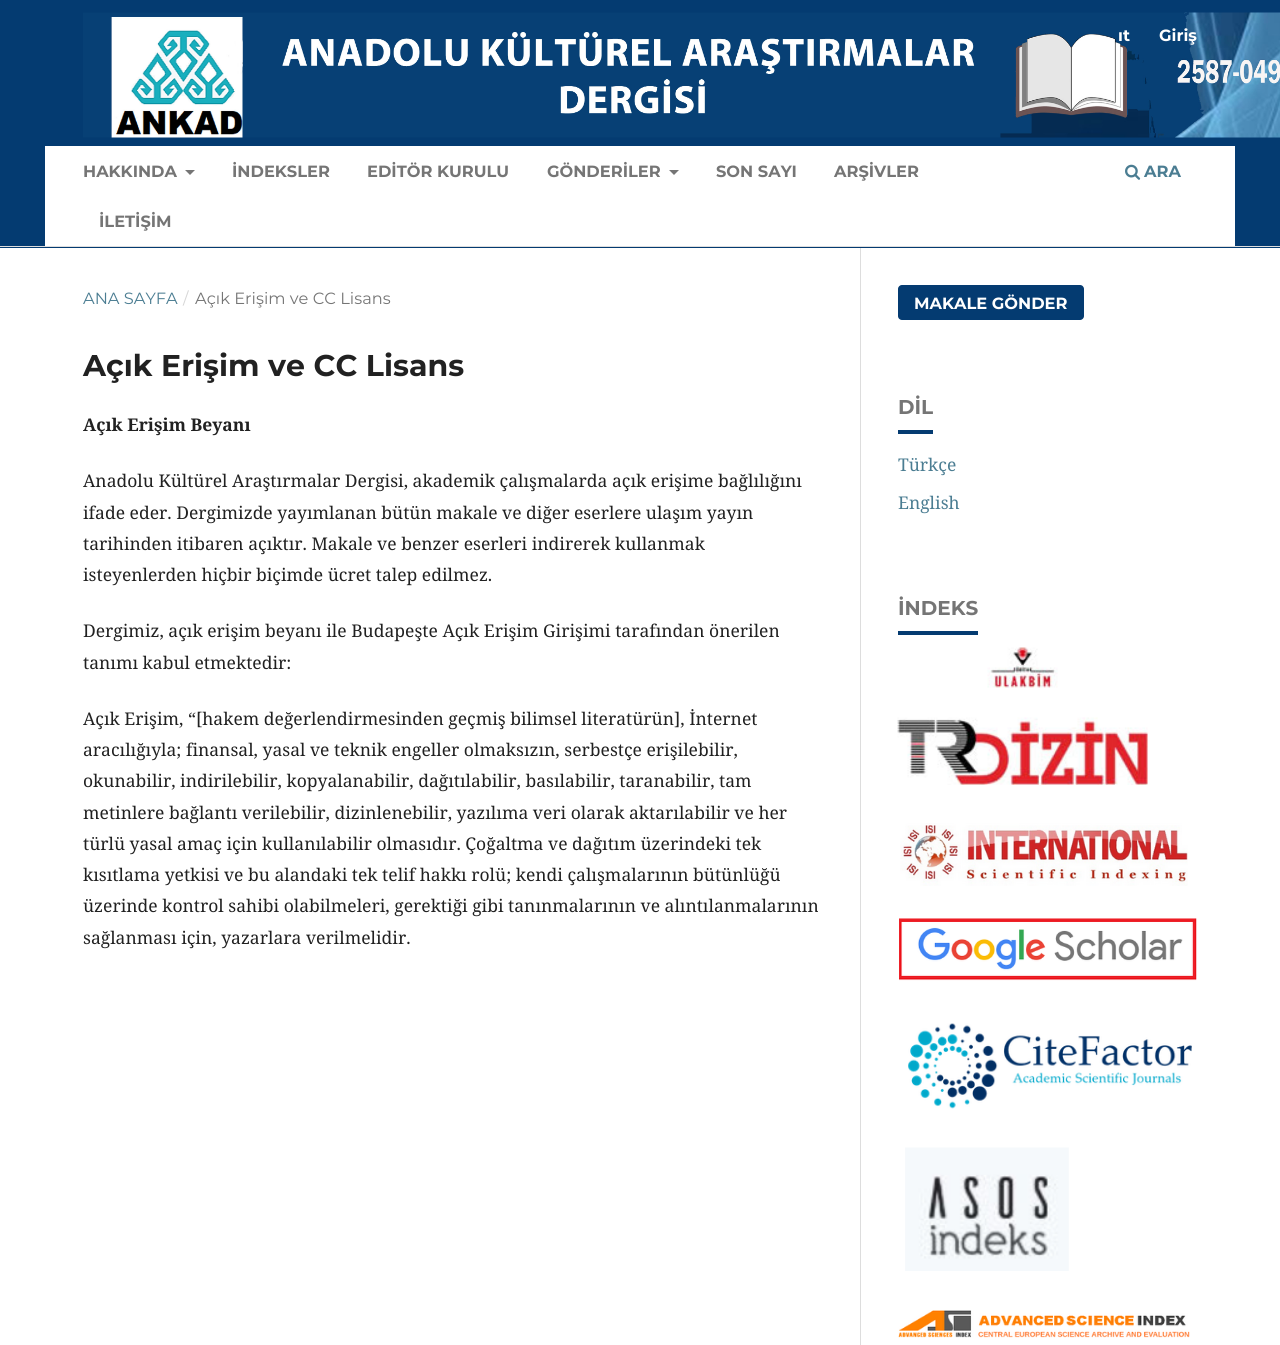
import math
import cairo

surface = cairo.ImageSurface(cairo.FORMAT_RGB24, 1280, 1345)
c = cairo.Context(surface)
options = cairo.FontOptions()
options.set_hint_metrics(cairo.HINT_METRICS_OFF)
options.set_hint_style(cairo.HINT_STYLE_NONE)
c.set_font_options(options)
c.set_miter_limit(4)
def C(code):
 c.set_source_rgb(*(v / 255 for v in bytes.fromhex(code[-6:])))
def F(family, size, italic, bold):
 c.select_font_face(family, cairo.FONT_SLANT_ITALIC if italic else cairo.FONT_SLANT_NORMAL, cairo.FONT_WEIGHT_BOLD if bold else cairo.FONT_WEIGHT_NORMAL)
 c.set_font_size(size)
def T(x, y, s):
 c.move_to(x, y)
 c.show_text(s)
def R(x, y, w, h):
 c.rectangle(x, y, w, h)
 c.fill()
def Q(x, y, w, h, r):
 c.new_sub_path()
 for i, (u, v) in enumerate([(x + w - r, y + h - r), (x + r, y + h - r), (x + r, y + r), (x + w - r, y + r)]):
  c.arc(u, v, r, i * math.pi / 2, (i + 1) * math.pi / 2)
 c.close_path()
def I(path, x, y, w, h):
 c.save()
 c.set_source_surface(cairo.ImageSurface.create_from_png(path), x, y)
 c.rectangle(x, y, w, h)
 c.fill()
 c.restore()
C('ffffff')
c.paint()
C('043b71')
R(0,0,1280,248)
C('dddddd')
R(0,246,1280,1)
I('1.png',83,12,1197,126)
F('Montserrat',16.25,0,1)
C('ffffff')
T(1118,41,'ıt')
T(1159,41,'Giriş')
R(45,146,1190,100)
C('757575')
T(83,177,'HAKKINDA')
c.new_path()
c.move_to(185,170)
c.line_to(195,170)
c.line_to(190,175)
c.close_path()
c.fill()
T(232,177,'İNDEKSLER')
T(367,177,'EDİTÖR KURULU')
T(547,177,'GÖNDERİLER')
c.new_path()
c.move_to(669,170)
c.line_to(679,170)
c.line_to(674,175)
c.close_path()
c.fill()
T(716,177,'SON SAYI')
T(834,177,'ARŞİVLER')
T(99,227,'İLETİŞİM')
I('2.png',1125,164,16,16)
C('4b7d92')
T(1144,177,'ARA')
F('Montserrat',16.25,0,0)
T(83,304,'ANA SAYFA')
C('d6d6d6')
T(183,304,'/')
C('757575')
T(195,304,'Açık Erişim ve CC Lisans')
F('Montserrat',30,0,1)
C('212121')
T(83,376,'Açık Erişim ve CC Lisans')
F('Noto Serif',17.5,0,1)
T(83,431,'Açık Erişim Beyanı')
F('Noto Serif',17.5,0,0)
T(83,487,'Anadolu Kültürel Araştırmalar Dergisi, akademik çalışmalarda açık erişime bağlılığını')
T(83,519,'ifade eder. Dergimizde yayımlanan bütün makale ve diğer eserlere ulaşım yayın')
T(83,550,'tarihinden itibaren açıktır. Makale ve benzer eserleri indirerek kullanmak')
T(83,581,'isteyenlerden hiçbir biçimde ücret talep edilmez.')
T(83,637,'Dergimiz, açık erişim beyanı ile Budapeşte Açık Erişim Girişimi tarafından önerilen')
T(83,669,'tanımı kabul etmektedir:')
T(83,725,'Açık Erişim, “[hakem değerlendirmesinden geçmiş bilimsel literatürün], İnternet')
T(83,756,'aracılığıyla; finansal, yasal ve teknik engeller olmaksızın, serbestçe erişilebilir,')
T(83,787,'okunabilir, indirilebilir, kopyalanabilir, dağıtılabilir, basılabilir, taranabilir, tam')
T(83,819,'metinlere bağlantı verilebilir, dizinlenebilir, yazılıma veri olarak aktarılabilir ve her')
T(83,850,'türlü yasal amaç için kullanılabilir olmasıdır. Çoğaltma ve dağıtım üzerindeki tek')
T(83,881,'kısıtlama yetkisi ve bu alandaki tek telif hakkı rolü; kendi çalışmalarının bütünlüğü')
T(83,912,'üzerinde kontrol sahibi olabilmeleri, gerektiği gibi tanınmalarının ve alıntılanmalarının')
T(83,944,'sağlanması için, yazarlara verilmelidir.')
C('dddddd')
R(860,248,1,1097)
C('043b71')
Q(898,285,186,35,4)
c.fill()
F('Montserrat',16.25,0,1)
C('ffffff')
T(914,309,'MAKALE GÖNDER')
C('043b71')
R(898,430,35,4)
F('Montserrat',20,0,1)
C('757575')
T(898,414,'DİL')
F('Noto Serif',17.5,0,0)
C('4b7d92')
T(898,471,'Türkçe')
T(898,509,'English')
C('043b71')
R(898,631,80,4)
F('Montserrat',20,0,1)
C('757575')
T(898,615,'İNDEKS')
I('3.png',897,647,251,138)
I('4.png',900,823,288,63)
I('5.png',899,918,298,63)
I('6.png',908,1023,284,86)
I('7.png',905,1147,164,124)
I('8.png',898,1310,292,28)
surface.write_to_png('o.png')
